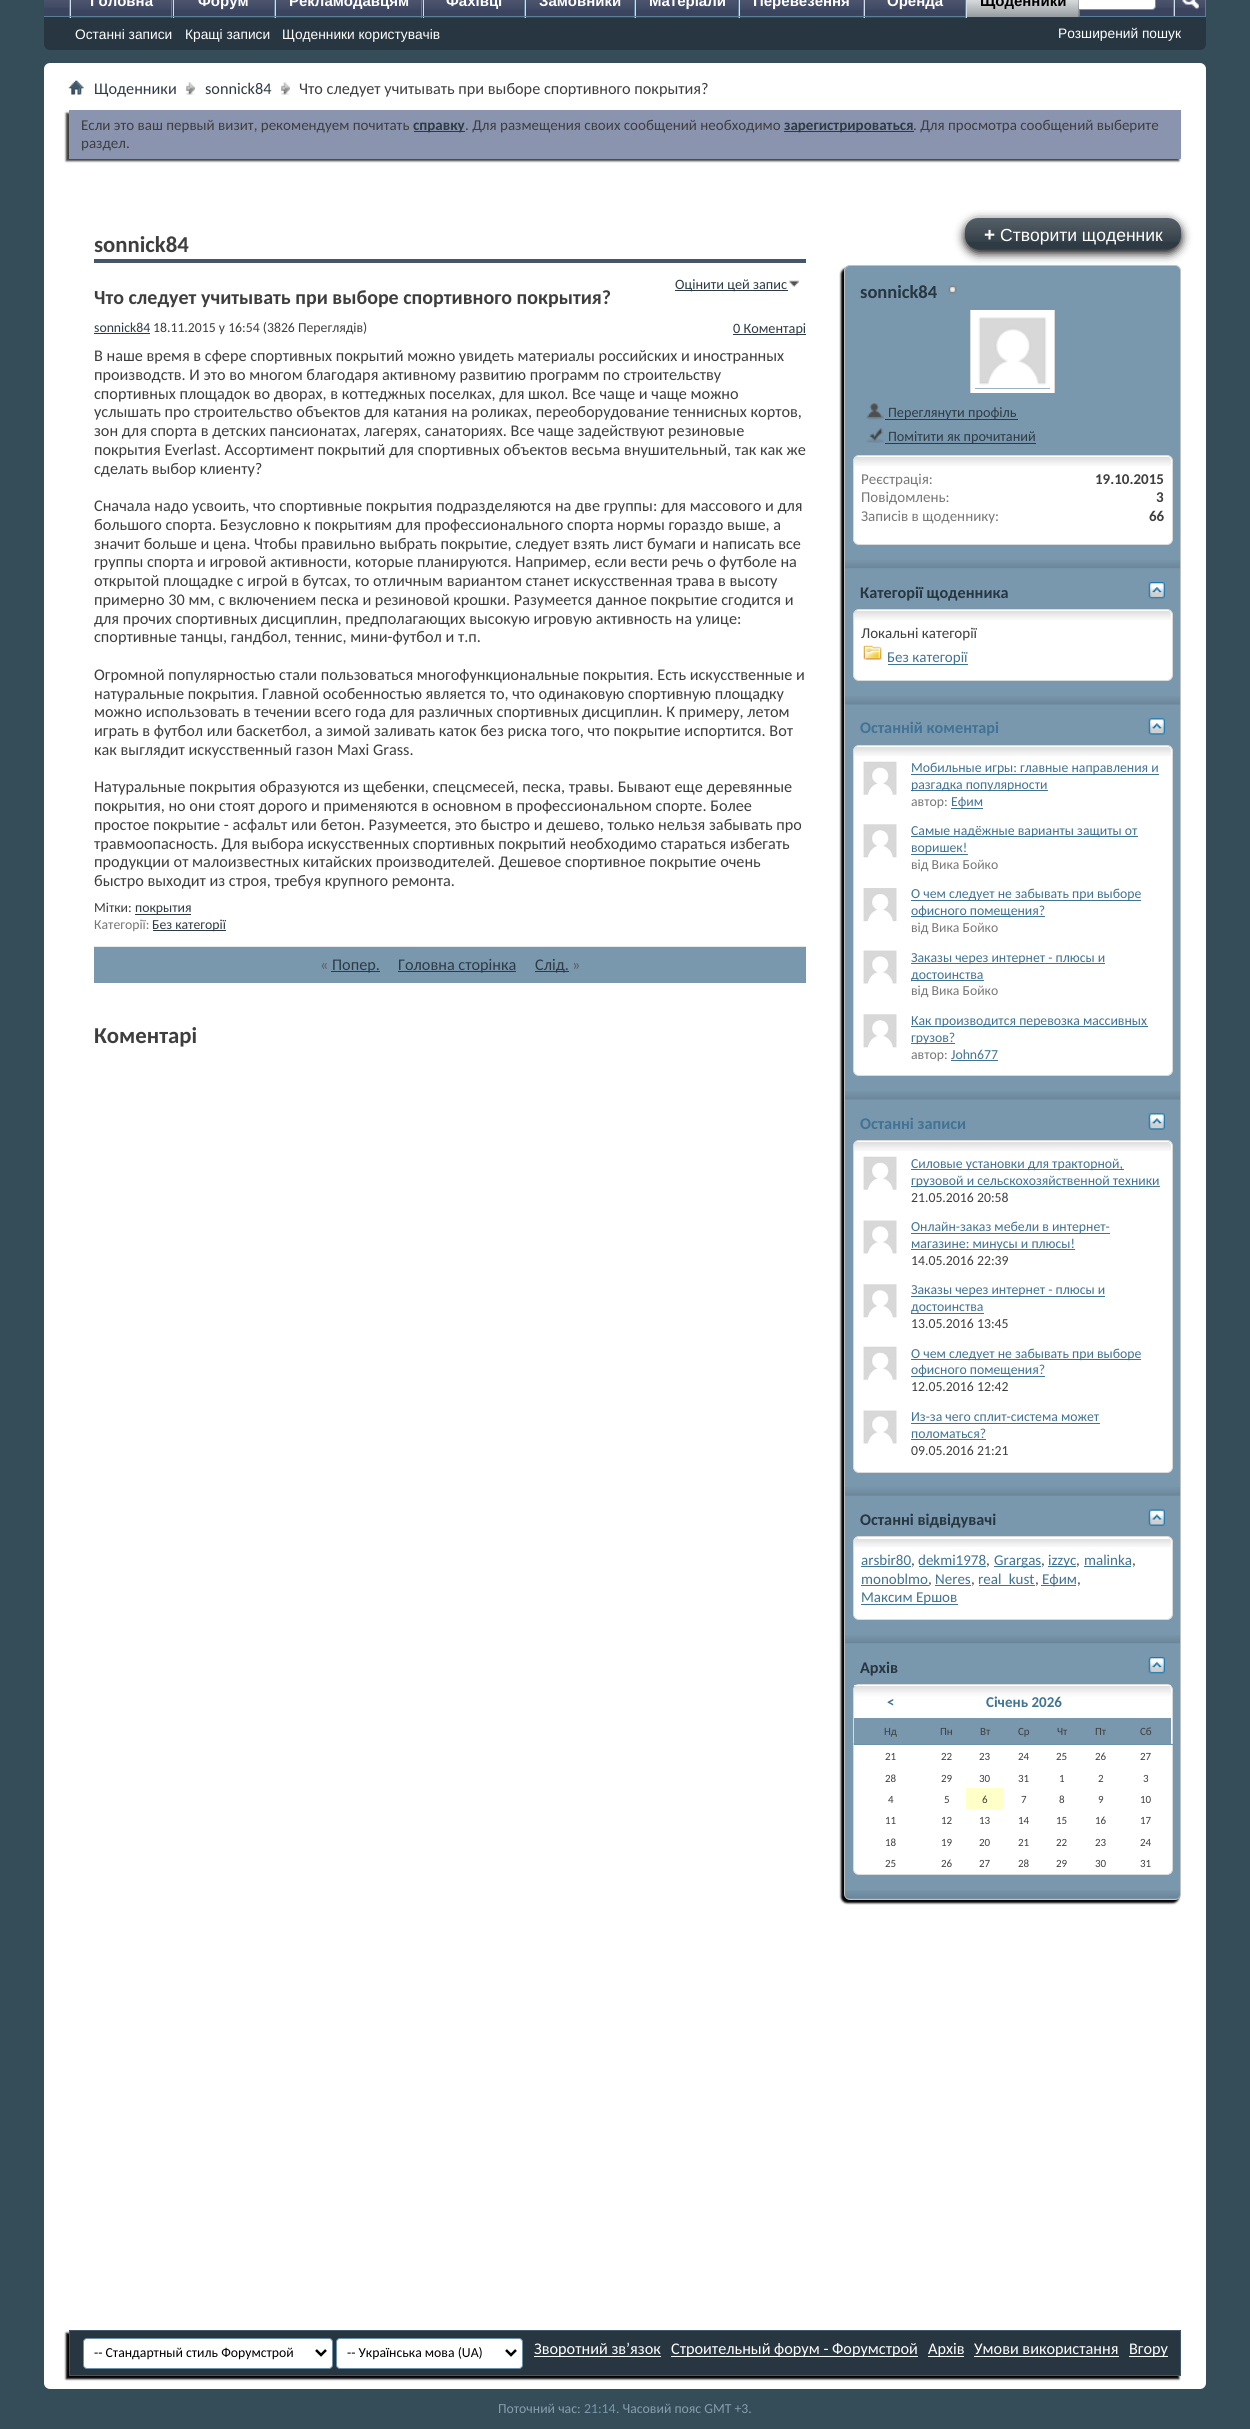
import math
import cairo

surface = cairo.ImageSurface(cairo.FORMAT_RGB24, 1250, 2429)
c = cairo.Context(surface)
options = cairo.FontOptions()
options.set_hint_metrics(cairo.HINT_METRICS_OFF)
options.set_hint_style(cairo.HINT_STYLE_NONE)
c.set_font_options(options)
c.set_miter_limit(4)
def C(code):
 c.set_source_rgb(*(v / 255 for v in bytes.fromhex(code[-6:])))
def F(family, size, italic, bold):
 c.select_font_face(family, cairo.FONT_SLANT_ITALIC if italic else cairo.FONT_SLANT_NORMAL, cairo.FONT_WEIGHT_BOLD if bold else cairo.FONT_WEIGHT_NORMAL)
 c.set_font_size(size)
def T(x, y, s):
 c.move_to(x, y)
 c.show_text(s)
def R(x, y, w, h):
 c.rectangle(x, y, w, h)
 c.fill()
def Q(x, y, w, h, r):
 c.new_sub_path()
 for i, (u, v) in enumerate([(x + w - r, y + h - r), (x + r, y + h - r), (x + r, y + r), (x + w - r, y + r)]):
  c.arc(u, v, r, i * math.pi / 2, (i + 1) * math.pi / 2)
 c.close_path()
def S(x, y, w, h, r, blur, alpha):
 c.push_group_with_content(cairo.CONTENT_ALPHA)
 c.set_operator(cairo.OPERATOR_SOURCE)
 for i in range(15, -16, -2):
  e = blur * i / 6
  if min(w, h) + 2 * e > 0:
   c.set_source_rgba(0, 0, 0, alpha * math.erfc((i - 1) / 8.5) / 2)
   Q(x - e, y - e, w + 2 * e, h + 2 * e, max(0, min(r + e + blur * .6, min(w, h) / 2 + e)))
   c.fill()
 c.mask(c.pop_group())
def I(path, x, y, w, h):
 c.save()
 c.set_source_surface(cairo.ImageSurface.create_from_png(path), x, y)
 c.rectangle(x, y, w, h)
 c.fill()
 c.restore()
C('354d59')
c.paint()
C('273640')
c.new_path()
c.move_to(44,-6)
c.line_to(1206,-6)
c.line_to(1206,44)
c.curve_to(1206,47.5,1203.5,50,1200,50)
c.line_to(50,50)
c.curve_to(46.5,50,44,47.5,44,44)
c.close_path()
c.fill()
C('3b445f')
R(44,0,1161,16)
I('1.png',44,0,1161,8)
C('5a7f97')
R(1079,10,1,6)
R(171,0,1,18)
R(69,0,1,18)
C('3b445f')
R(71,0,100,18)
C('cedfeb')
R(70,0,1,18)
C('5a7f97')
R(274,0,1,18)
C('3b445f')
R(174,0,100,18)
I('4.png',172,0,102,10)
C('cedfeb')
R(173,0,1,18)
C('5a7f97')
R(421,0,1,18)
C('3b445f')
R(276,0,145,18)
C('cedfeb')
R(275,0,1,18)
C('5a7f97')
R(524,0,1,18)
C('3b445f')
R(424,0,100,18)
I('4.png',422,0,102,10)
C('cedfeb')
R(423,0,1,18)
C('5a7f97')
R(634,0,1,18)
C('3b445f')
R(526,0,108,18)
C('cedfeb')
R(525,0,1,18)
C('5a7f97')
R(738,0,1,18)
C('3b445f')
R(636,0,102,18)
C('cedfeb')
R(635,0,1,18)
C('5a7f97')
R(863,0,1,18)
C('3b445f')
R(740,0,123,18)
C('cedfeb')
R(739,0,1,18)
C('5a7f97')
R(965,0,1,18)
C('3b445f')
R(865,0,100,18)
C('cedfeb')
R(864,0,1,18)
C('5a7f97')
R(44,16,1162,1)
C('ffffff')
Q(1001.5,-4.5,154,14,3.5)
c.fill_preserve()
C('6b91ab')
c.set_line_width(1)
c.stroke()
C('2f3b44')
R(967,0,112,18)
I('2.png',967,0,112,17)
C('cedfeb')
R(966,0,1,18)
F('Liberation Sans',15,0,1)
C('000000')
T(980,6,'Щоденники')
F('Liberation Sans',13.75,0,0)
C('ffffff')
T(75,39,'Останні записи')
T(185,39,'Кращі записи')
T(282,39,'Щоденники користувачів')
I('3.png',71,0,100,10)
F('Liberation Sans',15,0,1)
T(90,6,'Головна')
T(198,6,'Форум')
I('5.png',276,0,145,10)
T(289,6,'Рекламодавцям')
T(446,6,'Фахівці')
I('6.png',526,0,108,10)
T(539,6,'Замовники')
I('7.png',636,0,102,10)
T(649,6,'Матеріали')
I('8.png',740,0,123,10)
T(753,6,'Перевезення')
I('3.png',865,0,100,10)
T(887,6,'Оренда')
C('5a7f97')
R(1205,0,1,16)
R(1173,0,1,16)
C('cedfeb')
R(1174,0,1,16)
I('9.png',1182,0,17,10)
F('Liberation Sans',13.75,0,0)
C('ffffff')
T(1058,38,'Розширений пошук')
Q(44,63,1162,2326,6)
c.fill()
I('10.png',68,80,16,15)
I('11.png',186,82,9,13)
F('Carlito',16.25,0,0)
C('2f3b44')
T(94,94,'Щоденники')
I('11.png',281,82,9,13)
T(205,94,'sonnick84')
C('3e3e3e')
T(299,94,'Что следует учитывать при выборе спортивного покрытия?')
C('3e3e3e')
S(66,113,1113,48,0,1,1)
C('8a94af')
R(69,110,1112,49)
F('Carlito',15,0,0)
C('3e3e3e')
T(81,130,'Если это ваш первый визит, рекомендуем почитать')
C('2f3b44')
R(414,131,51,1)
F('Carlito',15,0,1)
T(413,130,'справку')
F('Carlito',15,0,0)
C('3e3e3e')
T(465,130,'. Для размещения своих сообщений необходимо')
C('2f3b44')
R(784,131,130,1)
F('Carlito',15,0,1)
T(784,130,'зарегистрироваться')
F('Carlito',15,0,0)
C('3e3e3e')
T(913,130,'. Для просмотра сообщений выберите')
T(81,148,'раздел.')
C('425769')
R(94,259,712,4)
F('Carlito',22.75,0,1)
C('3e3e3e')
T(94,252,'sonnick84')
C('2f3b44')
R(675,290,113,1)
F('Carlito',14.25,0,0)
T(675,289,'Оцінити цей запис')
I('12.png',788,280,12,7)
F('Carlito',20,0,1)
C('3e3e3e')
T(94,304,'Что следует учитывать при выборе спортивного покрытия?')
F('Carlito',13.75,0,0)
C('2f3b44')
T(94,332,'sonnick84')
R(94,333,56,1)
C('3e3e3e')
T(153,332,'18.11.2015 у 16:54 (3826 Переглядів)')
C('2f3b44')
R(733,334,73,1)
F('Carlito',14.25,0,0)
T(733,333,'0 Коментарі')
F('Carlito',16.25,0,0)
C('3e3e3e')
T(94,361,'В наше время в сфере спортивных покрытий можно увидеть материалы российских и иностранных')
T(94,380,'производств. И это во многом благодаря активному развитию программ по строительству')
T(94,399,'спортивных площадок во дворах, в коттеджных поселках, для школ. Все чаще и чаще можно')
T(94,417,'услышать про строительство объектов для катания на роликах, переоборудование теннисных кортов,')
T(94,436,'зон для спорта в детских пансионатах, лагерях, санаториях. Все чаще задействуют резиновые')
T(94,455,'покрытия Everlast. Ассортимент покрытий для спортивных объектов весьма внушительный, так как же')
T(94,474,'сделать выбор клиенту?')
T(94,511,'Сначала надо усвоить, что спортивные покрытия подразделяются на две группы: для массового и для')
T(94,530,'большого спорта. Безусловно к покрытиям для профессионального спорта нормы гораздо выше, а')
T(94,549,'значит больше и цена. Чтобы правильно выбрать покрытие, следует взять лист бумаги и написать все')
T(94,567,'группы спорта и игровой активности, которые планируются. Например, если вести речь о футболе на')
T(94,586,'открытой площадке с игрой в бутсах, то отличным вариантом станет искусственная трава в высоту')
T(94,605,'примерно 30 мм, с включением песка и резиновой крошки. Разумеется данное покрытие сгодится и')
T(94,624,'для прочих спортивных дисциплин, предполагающих высокую игровую активность на улице:')
T(94,642,'спортивные танцы, гандбол, теннис, мини-футбол и т.п.')
T(94,680,'Огромной популярностью стали пользоваться многофункциональные покрытия. Есть искусственные и')
T(94,699,'натуральные покрытия. Главной особенностью является то, что одинаковую спортивную площадку')
T(94,717,'можно использовать в течении всего года для различных спортивных дисциплин. К примеру, летом')
T(94,736,'играть в футбол или баскетбол, а зимой заливать каток без риска того, что покрытие испортится. Вот')
T(94,755,'как выглядит искусственный газон Maxi Grass.')
T(94,792,'Натуральные покрытия образуются из щебенки, спецсмесей, песка, травы. Бывают еще деревянные')
T(94,811,'покрытия, но они стоят дорого и применяются в основном в профессиональном спорте. Более')
T(94,830,'простое покрытие - асфальт или бетон. Разумеется, это быстро и дешево, только нельзя забывать про')
T(94,849,'травмоопасность. Для выбора искусственных спортивных покрытий необходимо стараться избегать')
T(94,867,'продукции от малоизвестных китайских производителей. Дешевое спортивное покрытие очень')
T(94,886,'быстро выходит из строя, требуя крупного ремонта.')
F('Carlito',13.75,0,0)
T(94,912,'Мітки:')
C('2f3b44')
R(135,914,56,1)
T(135,912,'покрытия')
C('777777')
T(94,929,'Категорії:')
C('2f3b44')
R(153,930,73,1)
T(152,929,'Без категорії')
C('7997ad')
R(94,947,712,36)
C('e7e7e7')
R(94,946,712,1)
F('Carlito',16.25,0,0)
C('5d5d5d')
T(320,970,'«')
C('2f3b44')
R(331,971,49,1)
T(332,970,'Попер.')
R(398,971,118,1)
T(398,970,'Головна сторінка')
R(535,971,34,1)
T(535,970,'Слід.')
C('5d5d5d')
T(572,970,'»')
F('Carlito',22.75,0,1)
C('3e3e3e')
T(94,1043,'Коментарі')
C('000000')
S(841,268,338,1635,6,1,1)
C('7997ad')
Q(844.5,265.5,336,1634,5.5)
c.fill_preserve()
C('c1c1c1')
c.stroke()
C('7997ad')
c.new_path()
c.move_to(851,266)
c.line_to(1174,266)
c.curve_to(1177.5,266,1180,268.5,1180,272)
c.line_to(1180,553)
c.line_to(845,553)
c.line_to(845,272)
c.curve_to(845,268.5,847.5,266,851,266)
c.close_path()
c.fill()
C('000000')
S(965,221,216,32,13,5,1)
C('2f3b44')
Q(965,218,216,31,13)
c.fill()
I('13.png',965,217,216,25)
F('Liberation Sans',19,0,1)
C('ffffff')
T(984,241,'+')
F('Liberation Sans',17.5,0,0)
T(1000,241,'Створити щоденник')
F('Carlito',18.5,0,1)
C('273640')
T(860,298,'sonnick84')
I('14.png',948,285,9,9)
c.rectangle(973,312,79,79)
C('ffffff')
c.set_line_width(4)
c.stroke()
I('15.png',975,314,75,75)
c.save()
c.rectangle(853,310,320,83)
c.clip()
c.rectangle(970.5,309.5,84,84)
C('dadada')
c.set_line_width(1)
c.stroke()
c.restore()
I('16.png',866,403,18,17)
C('2f3b44')
R(885,419,133,1)
F('Carlito',14.25,0,0)
T(888,417,'Переглянути профіль')
I('17.png',866,428,18,15)
R(885,443,151,1)
T(888,441,'Помітити як прочитаний')
C('ffffff')
Q(853.5,455.5,319,89,5.5)
c.fill_preserve()
C('dadada')
c.set_line_width(1)
c.stroke()
C('ffffff')
Q(854,456,317,88,6)
c.fill()
I('18.png',854,457,317,9)
R(1168,456,1,1)
F('Carlito',15,0,0)
C('777777')
T(861,484,'Реєстрація:')
F('Carlito',15,0,1)
C('3e3e3e')
T(1095,484,'19.10.2015')
F('Carlito',15,0,0)
C('777777')
T(861,502,'Повідомлень:')
F('Carlito',15,0,1)
C('3e3e3e')
T(1156,502,'3')
F('Carlito',15,0,0)
C('777777')
T(861,521,'Записів в щоденнику:')
F('Carlito',15,0,1)
C('3e3e3e')
T(1149,521,'66')
I('19.png',845,560,335,9)
F('Carlito',16.25,0,1)
C('273640')
T(860,598,'Категорії щоденника')
I('20.png',1148,582,17,17)
C('ffffff')
Q(853.5,609.5,319,71,5.5)
c.fill_preserve()
C('dadada')
c.stroke()
C('ffffff')
Q(854,610,317,70,6)
c.fill()
I('21.png',854,610,317,10)
R(858,610,311,1)
F('Carlito',15,0,0)
C('3e3e3e')
T(861,638,'Локальні категорії')
I('22.png',863,645,19,15)
C('417394')
R(888,664,80,1)
T(887,662,'Без категорії')
I('23.png',845,696,335,9)
F('Carlito',16.25,0,1)
T(860,733,'Останній коментарі')
I('24.png',1148,718,17,17)
C('ffffff')
Q(853.5,745.5,319,330,5.5)
c.fill_preserve()
C('dadada')
c.stroke()
C('ffffff')
Q(854,746,317,329,6)
c.fill()
I('25.png',854,747,317,9)
R(1168,746,1,1)
I('26.png',863,761,34,34)
C('417394')
R(911,774,248,1)
F('Carlito',13.75,0,0)
T(911,772,'Мобильные игры: главные направления и')
R(911,790,137,1)
T(911,789,'разгадка популярности')
C('777777')
T(911,806,'автор:')
C('417394')
R(951,808,32,1)
T(951,806,'Ефим')
I('27.png',863,824,34,34)
R(911,836,227,1)
T(911,835,'Самые надёжные варианты защиты от')
R(911,854,57,1)
T(911,852,'воришек!')
C('777777')
T(911,869,'від Вика Бойко')
I('28.png',863,888,34,34)
C('417394')
R(911,900,230,1)
T(911,898,'О чем следует не забывать при выборе')
R(911,916,134,1)
T(911,915,'офисного помещения?')
C('777777')
T(911,932,'від Вика Бойко')
I('29.png',863,950,34,34)
C('417394')
R(911,963,194,1)
T(911,962,'Заказы через интернет - плюсы и')
R(911,980,73,1)
T(911,979,'достоинства')
C('777777')
T(911,995,'від Вика Бойко')
I('27.png',863,1014,34,34)
C('417394')
R(911,1026,237,1)
T(911,1025,'Как производится перевозка массивных')
R(911,1043,44,1)
T(911,1042,'грузов?')
C('777777')
T(911,1059,'автор:')
C('417394')
R(951,1060,47,1)
T(951,1059,'John677')
I('23.png',845,1091,335,9)
F('Carlito',16.25,0,1)
T(860,1129,'Останні записи')
I('24.png',1148,1113,17,17)
C('ffffff')
Q(853.5,1140.5,319,332,5.5)
c.fill_preserve()
C('dadada')
c.stroke()
C('ffffff')
Q(854,1141,317,330,6)
c.fill()
I('18.png',854,1142,317,9)
R(1168,1141,1,1)
I('26.png',863,1156,34,34)
C('417394')
R(911,1169,213,1)
F('Carlito',13.75,0,0)
T(911,1168,'Силовые установки для тракторной,')
R(911,1186,249,1)
T(911,1185,'грузовой и сельскохозяйственной техники')
C('3e3e3e')
T(911,1202,'21.05.2016')
T(977,1202,'20:58')
I('29.png',863,1220,34,34)
C('417394')
R(911,1233,199,1)
T(911,1231,'Онлайн-заказ мебели в интернет-')
R(911,1249,164,1)
T(911,1248,'магазине: минусы и плюсы!')
C('3e3e3e')
T(911,1265,'14.05.2016')
T(977,1265,'22:39')
I('27.png',863,1284,34,34)
C('417394')
R(911,1296,194,1)
T(911,1294,'Заказы через интернет - плюсы и')
R(911,1313,73,1)
T(911,1311,'достоинства')
C('3e3e3e')
T(911,1328,'13.05.2016')
T(977,1328,'13:45')
I('26.png',863,1346,34,34)
C('417394')
R(911,1359,230,1)
T(911,1358,'О чем следует не забывать при выборе')
R(911,1376,134,1)
T(911,1374,'офисного помещения?')
C('3e3e3e')
T(911,1391,'12.05.2016')
T(977,1391,'12:42')
I('29.png',863,1410,34,34)
C('417394')
T(911,1421,'Из-за чего сплит-система может')
R(911,1423,189,1)
T(911,1438,'поломаться?')
R(911,1439,75,1)
C('3e3e3e')
T(911,1455,'09.05.2016')
T(977,1455,'21:21')
I('30.png',845,1487,335,9)
F('Carlito',16.25,0,1)
C('273640')
T(860,1525,'Останні відвідувачі')
I('31.png',1148,1509,17,17)
C('ffffff')
Q(853.5,1536.5,319,83,5.5)
c.fill_preserve()
C('dadada')
c.stroke()
C('ffffff')
Q(854,1538,317,81,6)
c.fill()
I('32.png',854,1538,317,9)
R(858,1538,311,1)
F('Carlito',15,0,0)
C('417394')
T(861,1565,'arsbir80')
R(861,1566,50,1)
C('3e3e3e')
T(911,1565,',')
C('417394')
T(918,1565,'dekmi1978')
R(919,1566,67,1)
C('3e3e3e')
T(986,1565,',')
C('417394')
R(994,1566,47,1)
T(994,1565,'Grargas')
C('3e3e3e')
T(1041,1565,',')
C('417394')
R(1048,1566,28,1)
T(1048,1565,'izzyc')
C('3e3e3e')
T(1076,1565,',')
C('417394')
T(1084,1565,'malinka')
R(1084,1566,47,1)
C('3e3e3e')
T(1132,1565,',')
C('417394')
T(861,1584,'monoblmo')
R(861,1585,68,1)
C('3e3e3e')
T(928,1584,',')
C('417394')
T(935,1584,'Neres')
R(935,1585,36,1)
C('3e3e3e')
T(971,1584,',')
C('417394')
R(979,1585,56,1)
T(978,1584,'real_kust')
C('3e3e3e')
T(1035,1584,',')
C('417394')
R(1041,1585,35,1)
T(1042,1584,'Ефим')
C('3e3e3e')
T(1077,1584,',')
C('417394')
R(861,1604,97,1)
T(861,1602,'Максим Ершов')
I('19.png',845,1635,335,9)
F('Carlito',16.25,0,1)
C('273640')
T(860,1673,'Архів')
I('33.png',1148,1657,17,17)
C('ffffff')
Q(853.5,1684.5,319,190,5.5)
c.fill_preserve()
C('dadada')
c.stroke()
C('ffffff')
Q(854,1685,317,189,6)
c.fill()
I('34.png',853,1686,319,59)
R(854,1685,317,1)
F('Carlito',15,0,1)
C('417394')
T(887,1707,'<')
T(986,1707,'Січень 2026')
C('7997ad')
R(854,1718,317,26)
F('Carlito',11,0,0)
C('3e3e3e')
T(884,1735,'Нд')
T(940,1735,'Пн')
T(980,1735,'Вт')
T(1018,1735,'Ср')
T(1057,1735,'Чт')
T(1095,1735,'Пт')
C('6b91ab')
R(854,1744,319,1)
C('3e3e3e')
T(1140,1735,'Сб')
T(885,1760,'21')
T(941,1760,'22')
T(979,1760,'23')
T(1018,1760,'24')
T(1056,1760,'25')
T(1095,1760,'26')
T(1140,1760,'27')
T(885,1782,'28')
T(941,1782,'29')
T(979,1782,'30')
T(1018,1782,'31')
T(1059,1782,'1')
T(1098,1782,'2')
T(1143,1782,'3')
T(888,1803,'4')
T(944,1803,'5')
C('ffffc8')
R(966,1788,38,21)
C('3e3e3e')
T(982,1803,'6')
T(1021,1803,'7')
T(1059,1803,'8')
T(1098,1803,'9')
T(1140,1803,'10')
T(885,1824,'11')
T(941,1824,'12')
T(979,1824,'13')
T(1018,1824,'14')
T(1056,1824,'15')
T(1095,1824,'16')
T(1140,1824,'17')
T(885,1846,'18')
T(941,1846,'19')
T(979,1846,'20')
T(1018,1846,'21')
T(1056,1846,'22')
T(1095,1846,'23')
T(1140,1846,'24')
T(885,1867,'25')
T(941,1867,'26')
T(979,1867,'27')
T(1018,1867,'28')
T(1056,1867,'29')
T(1095,1867,'30')
T(1140,1867,'31')
I('35.png',845,1890,335,9)
C('000000')
S(66,2333,1113,46,0,1,1)
C('273640')
c.rectangle(69.5,2330.5,1111,45)
c.fill_preserve()
C('425769')
c.stroke()
C('ffffff')
Q(83.5,2338.5,249,30,3.5)
c.fill_preserve()
C('6b91ab')
c.stroke()
c.new_path()
c.move_to(316,2350)
c.line_to(321,2355)
c.line_to(326,2350)
C('000000')
c.set_line_width(2.5)
c.stroke()
F('Carlito',13.75,0,0)
T(94,2357,'-- Стандартный стиль Форумстрой')
C('ffffff')
Q(336.5,2338.5,186,30,3.5)
c.fill_preserve()
C('6b91ab')
c.set_line_width(1)
c.stroke()
c.new_path()
c.move_to(506,2350)
c.line_to(511,2355)
c.line_to(516,2350)
C('000000')
c.set_line_width(2.5)
c.stroke()
T(347,2357,'-- Українська мова (UA)')
C('ffffff')
R(534,2356,127,1)
F('Carlito',16.25,0,0)
T(534,2354,'Зворотний зв’язок')
R(671,2356,247,1)
T(671,2354,'Строительный форум - Форумстрой')
R(928,2356,36,1)
T(928,2354,'Архів')
R(974,2356,145,1)
T(974,2354,'Умови використання')
R(1129,2356,39,1)
T(1129,2354,'Вгору')
F('Carlito',13.75,0,0)
C('879dad')
T(498,2413,'Поточний час:')
C('7997ad')
T(584,2413,'21:14')
C('879dad')
T(616,2413,'. Часовий пояс GMT +3.')
surface.write_to_png('o.png')
